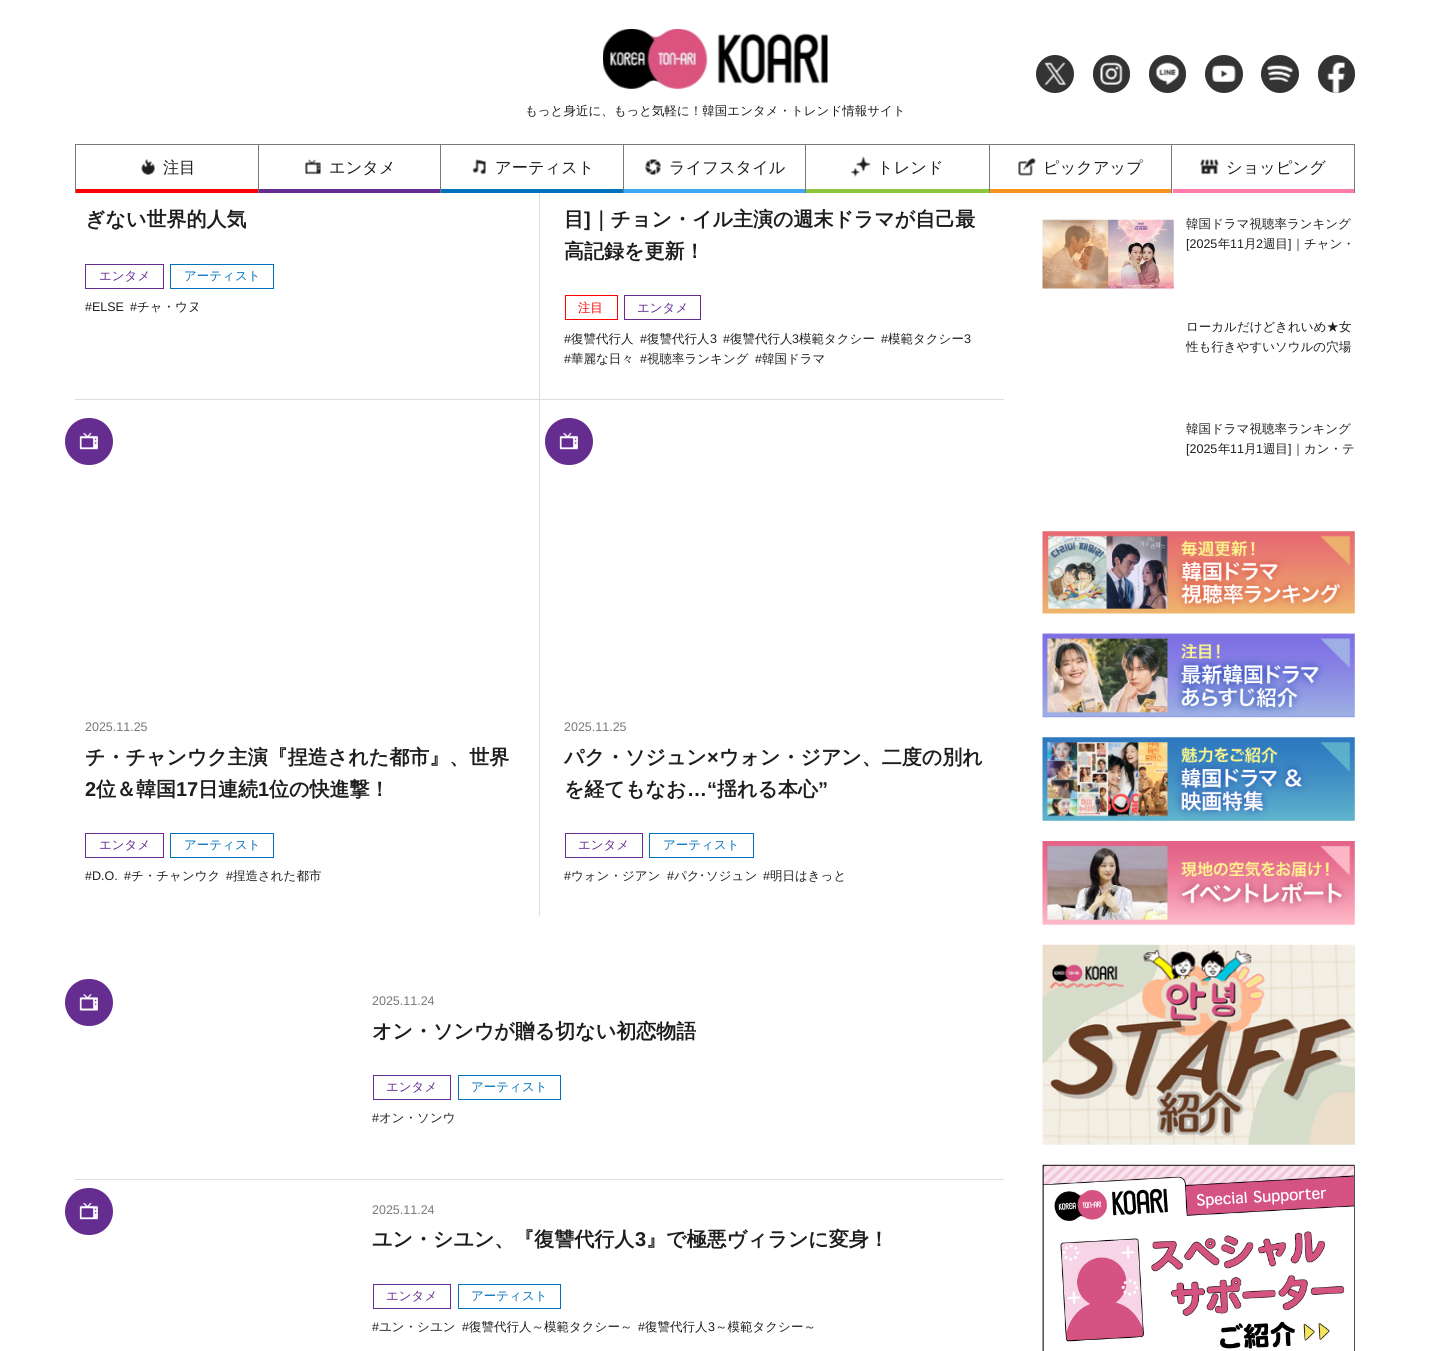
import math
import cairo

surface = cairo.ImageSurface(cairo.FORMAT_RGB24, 1429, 1351)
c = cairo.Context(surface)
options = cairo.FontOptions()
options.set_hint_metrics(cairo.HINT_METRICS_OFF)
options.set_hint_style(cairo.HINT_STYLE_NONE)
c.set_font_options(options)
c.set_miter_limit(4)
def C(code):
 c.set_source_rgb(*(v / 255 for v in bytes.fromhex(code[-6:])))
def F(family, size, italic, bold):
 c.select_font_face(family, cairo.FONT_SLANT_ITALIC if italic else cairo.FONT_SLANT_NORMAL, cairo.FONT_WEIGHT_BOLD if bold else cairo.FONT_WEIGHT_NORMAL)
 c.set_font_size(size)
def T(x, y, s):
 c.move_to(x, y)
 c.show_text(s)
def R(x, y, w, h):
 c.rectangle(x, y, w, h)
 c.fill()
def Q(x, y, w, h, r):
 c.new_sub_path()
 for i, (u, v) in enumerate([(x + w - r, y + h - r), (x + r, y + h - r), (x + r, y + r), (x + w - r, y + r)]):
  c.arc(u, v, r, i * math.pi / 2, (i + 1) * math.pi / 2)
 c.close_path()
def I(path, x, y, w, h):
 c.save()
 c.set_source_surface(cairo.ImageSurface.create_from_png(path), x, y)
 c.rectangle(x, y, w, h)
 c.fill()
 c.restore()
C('ffffff')
c.paint()
C('333333')
c.arc(1055,74,19,0,2 * math.pi)
c.fill()
I('1.png',1044,62,23,24)
Q(1093,55,37,38,18.5)
c.fill()
I('2.png',1100,62,23,23)
Q(1149,55,37,38,18.5)
c.fill()
I('3.png',1155,62,25,23)
c.arc(1224,74,19,0,2 * math.pi)
c.fill()
I('4.png',1212,65,24,17)
c.arc(1280,74,19,0,2 * math.pi)
c.fill()
I('5.png',1267,65,26,17)
Q(1318,55,37,38,18.5)
c.fill()
I('6.png',1327,62,18,31)
I('7.png',603,29,225,60)
F('WenQuanYi Zen Hei Medium',12.5,0,0)
C('1e1e1e')
T(525,115,'もっと身近に、もっと気軽に！韓国エンタメ・トレンド情報サイト')
C('787878')
R(75,144,1280,1)
R(258,144,1,49)
R(75,144,1,49)
C('ff0000')
R(76,189,182,4)
I('8.png',141,159,14,16)
F('WenQuanYi Zen Hei Medium',16.25,0,0)
C('1e1e1e')
T(163,173,'注目')
C('787878')
R(440,144,1,49)
C('662d91')
R(259,189,181,4)
I('9.png',305,159,16,16)
C('1e1e1e')
T(329,173,'エンタメ')
C('787878')
R(623,144,1,49)
C('0071bc')
R(441,189,182,4)
I('10.png',472,159,14,16)
C('1e1e1e')
T(495,173,'アーティスト')
C('787878')
R(805,144,1,49)
C('3fa9f5')
R(624,189,181,4)
I('11.png',645,159,16,16)
C('1e1e1e')
T(669,173,'ライフスタイル')
C('787878')
R(989,144,1,49)
C('8cc63f')
R(806,189,183,4)
I('12.png',850,157,21,20)
C('1e1e1e')
T(877,173,'トレンド')
C('787878')
R(1171,144,1,49)
C('f7931e')
R(990,189,181,4)
I('13.png',1018,158,18,18)
C('1e1e1e')
T(1043,173,'ピックアップ')
C('787878')
R(1354,144,1,49)
C('ff7bac')
R(1173,189,181,4)
I('14.png',1200,159,19,16)
C('1e1e1e')
T(1226,173,'ショッピング')
C('dddddd')
R(539,193,1,723)
R(75,399,929,1)
F('WenQuanYi Zen Hei',20,0,1)
C('1e1e1e')
T(85,226,'ぎない世界的人気')
c.rectangle(85.5,264.5,78,24)
C('662d91')
c.set_line_width(1)
c.stroke()
F('WenQuanYi Zen Hei Medium',12.5,0,0)
T(99,280,'エンタメ')
c.rectangle(170.5,264.5,103,24)
C('0071bc')
c.stroke()
T(184,280,'アーティスト')
F('Liberation Sans',12.5,0,0)
C('1e1e1e')
T(85,311,'#ELSE')
T(130,311,'#')
F('WenQuanYi Zen Hei Medium',12.5,0,0)
T(137,311,'チャ・ウヌ')
F('WenQuanYi Zen Hei',20,0,1)
T(564,226,'目')
F('Liberation Sans',20,0,1)
T(584,226,']')
F('WenQuanYi Zen Hei',20,0,1)
T(591,226,'｜チョン・イル主演の週末ドラマが自己最')
T(564,258,'高記録を更新！')
c.rectangle(565.5,295.5,52,24)
C('ff0000')
c.stroke()
F('WenQuanYi Zen Hei Medium',12.5,0,0)
T(578,312,'注目')
c.rectangle(624.5,295.5,76,24)
C('662d91')
c.stroke()
T(637,312,'エンタメ')
F('Liberation Sans',12.5,0,0)
C('1e1e1e')
T(564,343,'#')
F('WenQuanYi Zen Hei Medium',12.5,0,0)
T(571,343,'復讐代行人')
F('Liberation Sans',12.5,0,0)
T(640,343,'#')
F('WenQuanYi Zen Hei Medium',12.5,0,0)
T(647,343,'復讐代行人')
F('Liberation Sans',12.5,0,0)
T(710,343,'3')
T(723,343,'#')
F('WenQuanYi Zen Hei Medium',12.5,0,0)
T(730,343,'復讐代行人')
F('Liberation Sans',12.5,0,0)
T(792,343,'3')
F('WenQuanYi Zen Hei Medium',12.5,0,0)
T(799,343,'模範タクシー')
F('Liberation Sans',12.5,0,0)
T(881,343,'#')
F('WenQuanYi Zen Hei Medium',12.5,0,0)
T(888,343,'模範タクシー')
F('Liberation Sans',12.5,0,0)
T(964,343,'3')
T(564,363,'#')
F('WenQuanYi Zen Hei Medium',12.5,0,0)
T(571,363,'華麗な日々')
F('Liberation Sans',12.5,0,0)
T(640,363,'#')
F('WenQuanYi Zen Hei Medium',12.5,0,0)
T(647,363,'視聴率ランキング')
F('Liberation Sans',12.5,0,0)
T(755,363,'#')
F('WenQuanYi Zen Hei Medium',12.5,0,0)
T(762,363,'韓国ドラマ')
C('662d91')
Q(65,418,48,47,23.5)
c.fill()
I('15.png',79,432,19,18)
F('Liberation Sans',12.5,0,0)
C('787878')
T(85,731,'2025.11.25')
F('WenQuanYi Zen Hei',20,0,1)
C('1e1e1e')
T(85,764,'チ・チャンウク主演『捏造された都市』、世界')
F('Liberation Sans',20,0,1)
T(85,796,'2')
F('WenQuanYi Zen Hei',20,0,1)
T(96,796,'位＆韓国')
F('Liberation Sans',20,0,1)
T(176,796,'17')
F('WenQuanYi Zen Hei',20,0,1)
T(198,796,'日連続')
F('Liberation Sans',20,0,1)
T(258,796,'1')
F('WenQuanYi Zen Hei',20,0,1)
T(269,796,'位の快進撃！')
c.rectangle(85.5,833.5,78,24)
C('662d91')
c.stroke()
F('WenQuanYi Zen Hei Medium',12.5,0,0)
T(99,849,'エンタメ')
c.rectangle(170.5,833.5,103,24)
C('0071bc')
c.stroke()
T(184,849,'アーティスト')
F('Liberation Sans',12.5,0,0)
C('1e1e1e')
T(85,880,'#D.O.')
T(124,880,'#')
F('WenQuanYi Zen Hei Medium',12.5,0,0)
T(131,880,'チ・チャンウク')
F('Liberation Sans',12.5,0,0)
T(226,880,'#')
F('WenQuanYi Zen Hei Medium',12.5,0,0)
T(233,880,'捏造された都市')
C('662d91')
Q(545,418,48,47,23.5)
c.fill()
I('15.png',559,432,19,18)
F('Liberation Sans',12.5,0,0)
C('787878')
T(564,731,'2025.11.25')
F('WenQuanYi Zen Hei',20,0,1)
C('1e1e1e')
T(564,764,'パク・ソジュン')
F('Liberation Sans',20,0,1)
T(707,764,'×')
F('WenQuanYi Zen Hei',20,0,1)
T(719,764,'ウォン・ジアン、二度の別れ')
T(564,796,'を経てもなお')
F('Liberation Sans',20,0,1)
T(687,796,'…“')
F('WenQuanYi Zen Hei',20,0,1)
T(717,796,'揺れる本心')
F('Liberation Sans',20,0,1)
T(818,796,'”')
c.rectangle(565.5,833.5,77,24)
C('662d91')
c.stroke()
F('WenQuanYi Zen Hei Medium',12.5,0,0)
T(578,849,'エンタメ')
c.rectangle(649.5,833.5,104,24)
C('0071bc')
c.stroke()
T(663,849,'アーティスト')
F('Liberation Sans',12.5,0,0)
C('1e1e1e')
T(564,880,'#')
F('WenQuanYi Zen Hei Medium',12.5,0,0)
T(571,880,'ウォン・ジアン')
F('Liberation Sans',12.5,0,0)
T(667,880,'#')
F('WenQuanYi Zen Hei Medium',12.5,0,0)
T(674,880,'パク')
F('IPAPGothic',12.5,0,0)
T(699,880,'･')
F('WenQuanYi Zen Hei Medium',12.5,0,0)
T(706,880,'ソジュン')
F('Liberation Sans',12.5,0,0)
T(763,880,'#')
F('WenQuanYi Zen Hei Medium',12.5,0,0)
T(770,880,'明日はきっと')
C('dddddd')
R(75,1179,929,1)
C('662d91')
Q(65,979,48,47,23.5)
c.fill()
I('16.png',79,994,19,17)
F('Liberation Sans',12.5,0,0)
C('787878')
T(372,1005,'2025.11.24')
F('WenQuanYi Zen Hei',20,0,1)
C('1e1e1e')
T(372,1038,'オン・ソンウが贈る切ない初恋物語')
c.rectangle(373.5,1075.5,77,24)
C('662d91')
c.stroke()
F('WenQuanYi Zen Hei Medium',12.5,0,0)
T(386,1091,'エンタメ')
c.rectangle(458.5,1075.5,102,24)
C('0071bc')
c.stroke()
T(471,1091,'アーティスト')
F('Liberation Sans',12.5,0,0)
C('1e1e1e')
T(372,1122,'#')
F('WenQuanYi Zen Hei Medium',12.5,0,0)
T(379,1122,'オン・ソンウ')
C('662d91')
Q(65,1188,48,47,23.5)
c.fill()
I('15.png',79,1202,19,18)
F('Liberation Sans',12.5,0,0)
C('787878')
T(372,1214,'2025.11.24')
F('WenQuanYi Zen Hei',20,0,1)
C('1e1e1e')
T(372,1246,'ユン・シユン、『復讐代行人')
F('Liberation Sans',20,0,1)
T(635,1246,'3')
F('WenQuanYi Zen Hei',20,0,1)
T(646,1246,'』で極悪ヴィランに変身！')
c.rectangle(373.5,1284.5,77,24)
C('662d91')
c.stroke()
F('WenQuanYi Zen Hei Medium',12.5,0,0)
T(386,1300,'エンタメ')
c.rectangle(458.5,1284.5,102,24)
C('0071bc')
c.stroke()
T(471,1300,'アーティスト')
F('Liberation Sans',12.5,0,0)
C('1e1e1e')
T(372,1331,'#')
F('WenQuanYi Zen Hei Medium',12.5,0,0)
T(379,1331,'ユン・シユン')
F('Liberation Sans',12.5,0,0)
T(462,1331,'#')
F('WenQuanYi Zen Hei Medium',12.5,0,0)
T(469,1331,'復讐代行人～模範タクシー～')
F('Liberation Sans',12.5,0,0)
T(638,1331,'#')
F('WenQuanYi Zen Hei Medium',12.5,0,0)
T(645,1331,'復讐代行人')
F('Liberation Sans',12.5,0,0)
T(708,1331,'3')
F('WenQuanYi Zen Hei Medium',12.5,0,0)
T(715,1331,'～模範タクシー～')
I('17.png',1042,219,132,70)
T(1186,228,'韓国ドラマ視聴率ランキング')
F('Liberation Sans',12.5,0,0)
T(1186,248,'[2025')
F('WenQuanYi Zen Hei Medium',12.5,0,0)
T(1218,248,'年')
T(1244,248,'月')
T(1263,248,'週目 ｜チャン・')
F('Liberation Sans',12.5,0,0)
T(1230,248,'11')
T(1256,248,'2')
T(1288,248,']')
F('WenQuanYi Zen Hei Medium',12.5,0,0)
T(1186,331,'ローカルだけどきれいめ★女')
T(1186,351,'性も行きやすいソウルの穴場')
T(1186,433,'韓国ドラマ視聴率ランキング')
F('Liberation Sans',12.5,0,0)
T(1186,453,'[2025')
F('WenQuanYi Zen Hei Medium',12.5,0,0)
T(1218,453,'年')
T(1244,453,'月')
T(1263,453,'週目 ｜カン・テ')
F('Liberation Sans',12.5,0,0)
T(1230,453,'11')
T(1256,453,'1')
T(1288,453,']')
I('18.png',1042,531,313,83)
I('19.png',1042,633,313,85)
I('20.png',1042,737,313,84)
I('21.png',1042,841,313,84)
I('22.png',1042,944,313,201)
I('23.png',1042,1164,313,187)
surface.write_to_png('o.png')
